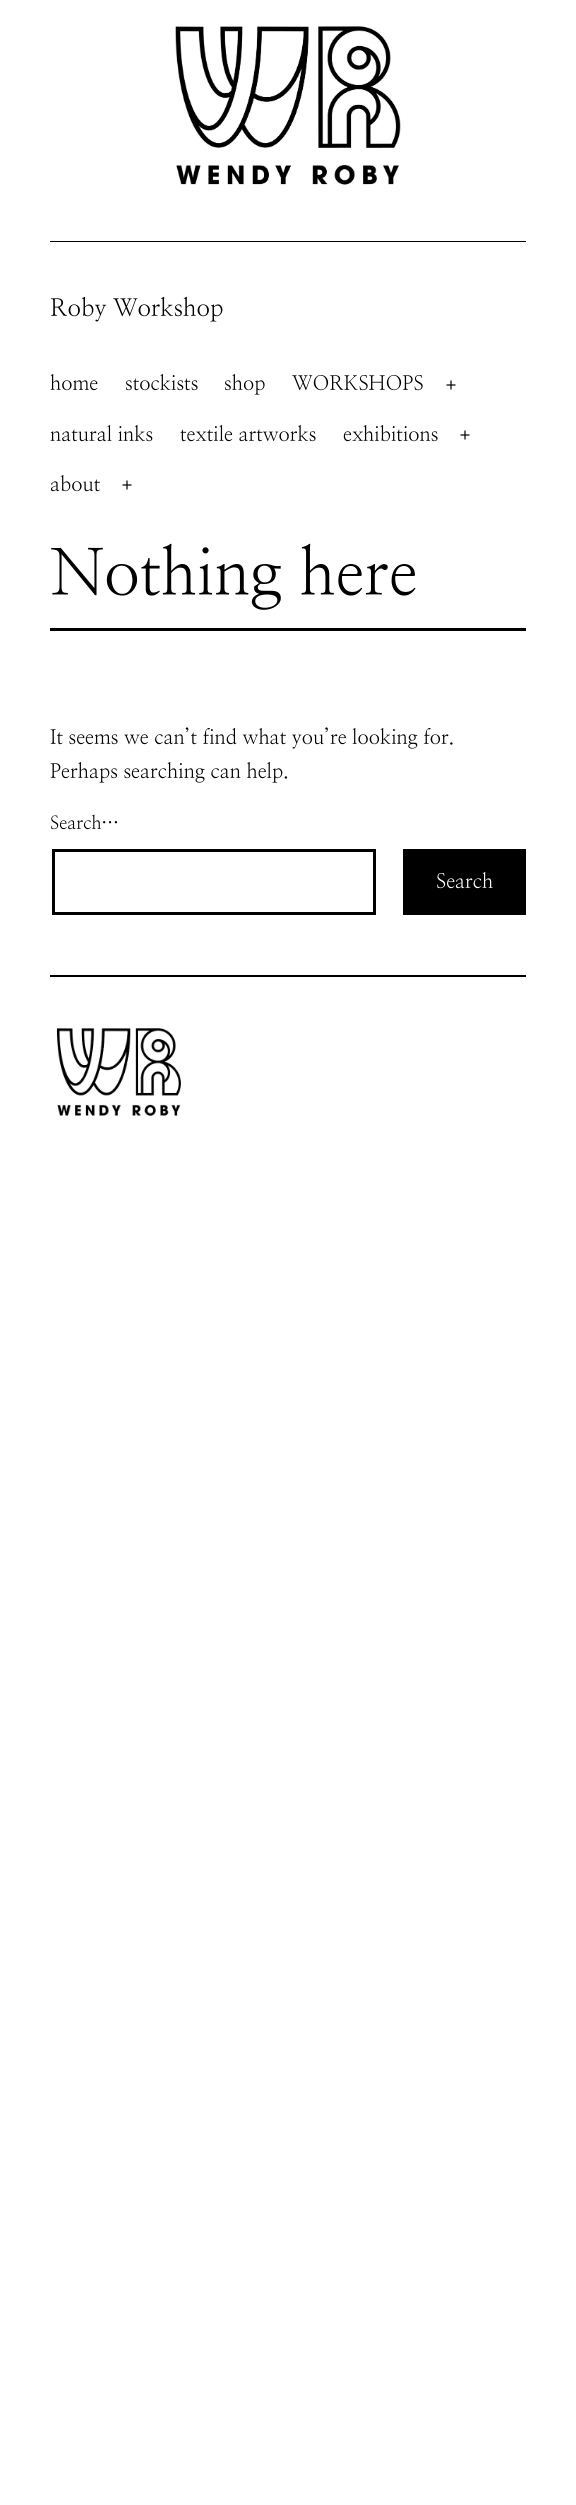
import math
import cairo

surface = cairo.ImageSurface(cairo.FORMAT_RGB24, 576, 2505)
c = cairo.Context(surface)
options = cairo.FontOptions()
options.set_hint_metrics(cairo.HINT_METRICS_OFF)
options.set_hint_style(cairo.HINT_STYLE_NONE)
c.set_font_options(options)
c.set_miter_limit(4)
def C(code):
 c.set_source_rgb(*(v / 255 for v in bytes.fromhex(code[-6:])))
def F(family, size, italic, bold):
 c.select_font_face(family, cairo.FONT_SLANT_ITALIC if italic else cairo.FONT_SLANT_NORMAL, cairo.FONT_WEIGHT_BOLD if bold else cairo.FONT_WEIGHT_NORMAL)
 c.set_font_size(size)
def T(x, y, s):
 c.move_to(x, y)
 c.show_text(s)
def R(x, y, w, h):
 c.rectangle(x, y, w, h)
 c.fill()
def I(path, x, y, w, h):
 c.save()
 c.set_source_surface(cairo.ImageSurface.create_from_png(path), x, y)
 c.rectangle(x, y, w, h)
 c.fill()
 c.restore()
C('ffffff')
c.paint()
C('000000')
R(50,241,476,1)
I('1.png',175,26,226,159)
F('NanumMyeongjo',24,0,0)
T(50,316,'Roby Workshop')
F('NanumMyeongjo',20,0,0)
T(50,390,'home')
T(125,390,'stockists')
T(224,390,'shop')
T(292,390,'WORKSHOPS')
I('2.png',446,380,10,10)
T(50,441,'natural inks')
T(180,441,'textile artworks')
T(343,441,'exhibitions')
I('2.png',460,430,10,10)
T(50,491,'about')
I('2.png',122,480,10,10)
R(50,628,476,3)
F('NanumMyeongjo',64,0,0)
T(50,595,'Nothing here')
F('NanumMyeongjo',20,0,0)
T(50,744,'It seems we can’t find what you’re looking for.')
T(50,778,'Perhaps searching can help.')
F('NanumMyeongjo',18,0,0)
T(50,829,'Search…')
c.rectangle(53.5,850.5,321,63)
c.set_line_width(3)
c.stroke()
R(403,849,123,66)
F('NanumMyeongjo',20,0,0)
C('ffffff')
T(436,888,'Search')
C('000000')
R(50,975,476,2)
I('3.png',56,1028,125,88)
surface.write_to_png('o.png')
